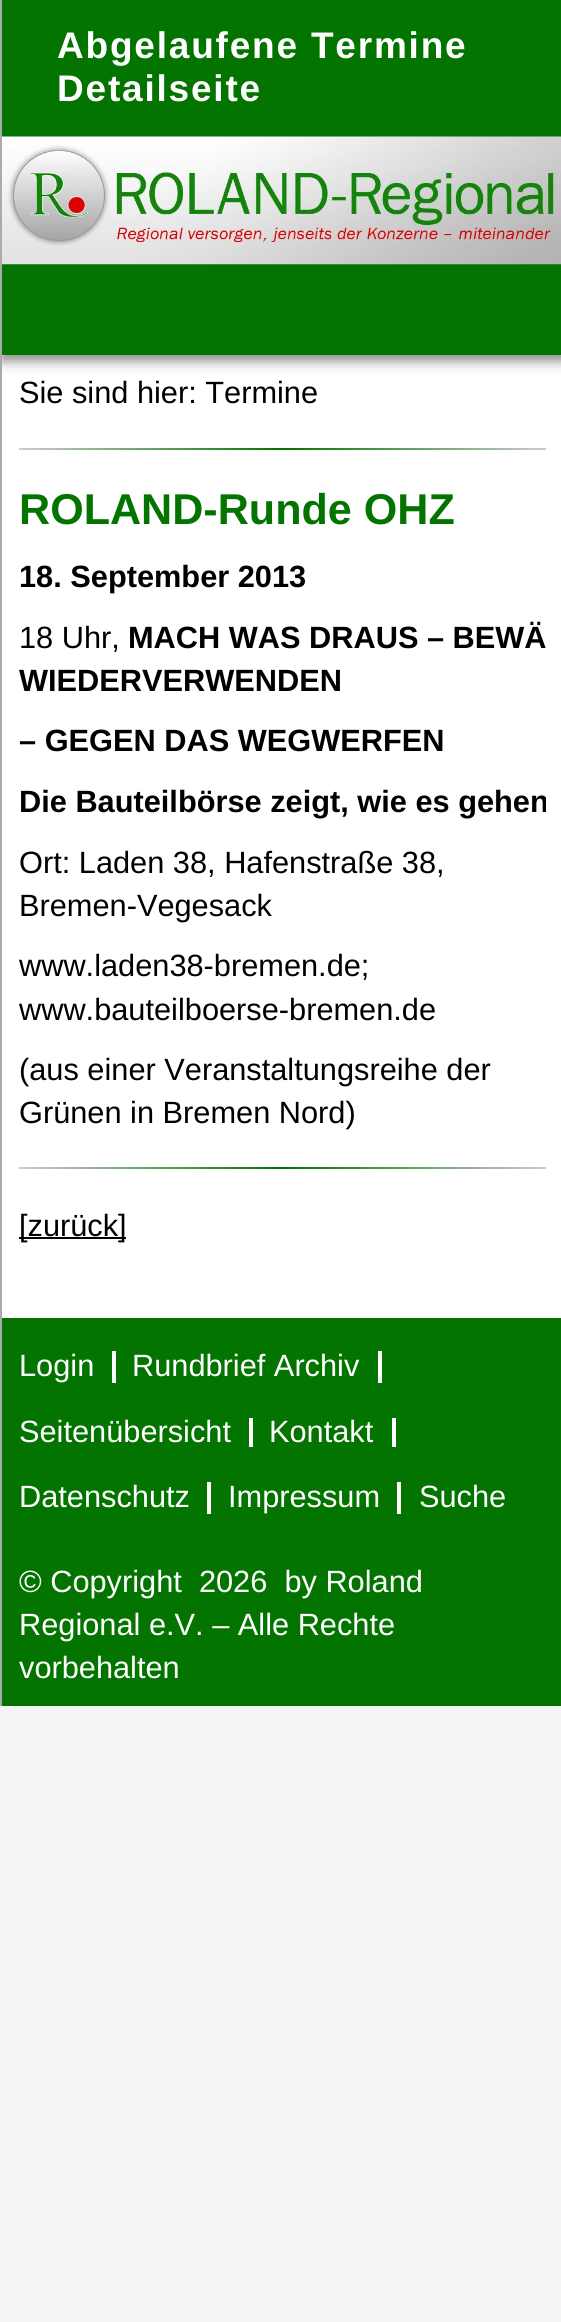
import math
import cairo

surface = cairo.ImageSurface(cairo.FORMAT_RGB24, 561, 2322)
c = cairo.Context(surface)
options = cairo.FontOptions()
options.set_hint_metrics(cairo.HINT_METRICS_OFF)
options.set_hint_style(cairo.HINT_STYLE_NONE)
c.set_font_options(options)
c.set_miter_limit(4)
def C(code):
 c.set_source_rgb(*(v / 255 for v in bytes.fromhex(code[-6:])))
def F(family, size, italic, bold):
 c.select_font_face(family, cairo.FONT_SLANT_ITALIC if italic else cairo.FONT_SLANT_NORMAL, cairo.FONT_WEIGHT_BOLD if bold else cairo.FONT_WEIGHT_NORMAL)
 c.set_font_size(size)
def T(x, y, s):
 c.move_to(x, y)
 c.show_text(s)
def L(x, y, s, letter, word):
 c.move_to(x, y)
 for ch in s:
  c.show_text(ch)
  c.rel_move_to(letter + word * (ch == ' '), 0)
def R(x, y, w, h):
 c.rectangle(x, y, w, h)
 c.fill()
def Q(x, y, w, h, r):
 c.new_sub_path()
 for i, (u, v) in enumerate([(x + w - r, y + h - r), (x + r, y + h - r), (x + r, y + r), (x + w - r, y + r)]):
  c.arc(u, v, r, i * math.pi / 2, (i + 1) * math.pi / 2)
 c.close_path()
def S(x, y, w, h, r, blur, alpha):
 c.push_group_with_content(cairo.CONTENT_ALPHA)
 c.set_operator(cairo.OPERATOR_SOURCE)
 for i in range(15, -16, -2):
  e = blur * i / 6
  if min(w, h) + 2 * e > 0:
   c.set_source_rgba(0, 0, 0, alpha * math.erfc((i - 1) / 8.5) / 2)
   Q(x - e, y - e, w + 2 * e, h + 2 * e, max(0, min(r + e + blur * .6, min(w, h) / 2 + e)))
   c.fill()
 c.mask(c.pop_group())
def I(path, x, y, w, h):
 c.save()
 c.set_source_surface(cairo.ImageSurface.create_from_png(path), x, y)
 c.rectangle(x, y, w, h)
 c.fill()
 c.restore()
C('f5f5f5')
c.paint()
C('aaaaaa')
R(0,0,2,1706)
C('ffffff')
R(2,355,559,963)
c.save()
c.rectangle(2,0,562,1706)
c.clip()
C('888888')
S(2,5,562,356,0,6,1)
c.restore()
C('037400')
R(2,0,559,355)
F('Liberation Sans',37,0,1)
C('ffffff')
L(57,58,'Abgelaufene Termine',1.8,0)
L(57,101,'Detailseite',1.8,0)
I('1.png',1,136,560,129)
F('Liberation Sans',30.75,0,0)
C('000000')
T(19,403,'Sie sind hier: Termine')
gradient = cairo.LinearGradient(19,449,546,449)
gradient.add_color_stop_rgba(0,0.8,0.8,0.8,1)
gradient.add_color_stop_rgba(.5,0.012,0.455,0,1)
gradient.add_color_stop_rgba(1,0.8,0.8,0.8,1)
c.set_source(gradient)
R(19,448,527,2)
F('Liberation Sans',43.1,0,1)
C('037400')
T(19,524,'ROLAND-Runde OHZ')
F('Liberation Sans',30.75,0,1)
C('000000')
T(19,587,'18. September 2013')
F('Liberation Sans',30.75,0,0)
T(19,648,'18 Uhr,')
F('Liberation Sans',30.75,0,1)
T(128,648,'MACH WAS DRAUS – BEWÄ')
T(19,691,'WIEDERVERWENDEN')
T(19,751,'– GEGEN DAS WEGWERFEN')
c.save()
c.rectangle(19,371,527,929)
c.clip()
T(19,812,'Die Bauteilbörse zeigt, wie es gehen')
c.restore()
F('Liberation Sans',30.75,0,0)
T(19,873,'Ort: Laden 38, Hafenstraße 38,')
T(19,916,'Bremen-Vegesack')
T(19,976,'www.laden38-bremen.de;')
T(19,1020,'www.bauteilboerse-bremen.de')
T(19,1080,'(aus einer Veranstaltungsreihe der')
T(19,1123,'Grünen in Bremen Nord)')
gradient = cairo.LinearGradient(19,1168,546,1168)
gradient.add_color_stop_rgba(0,0.8,0.8,0.8,1)
gradient.add_color_stop_rgba(.5,0.012,0.455,0,1)
gradient.add_color_stop_rgba(1,0.8,0.8,0.8,1)
c.set_source(gradient)
R(19,1167,527,2)
C('000000')
R(19,1237,107,2)
T(19,1236,'[zurück]')
C('037400')
R(2,1318,559,388)
C('ffffff')
R(112,1351,4,32)
T(19,1376,'Login')
R(378,1351,4,32)
T(132,1376,'Rundbrief Archiv')
R(249,1418,4,29)
T(19,1442,'Seitenübersicht')
R(392,1418,4,29)
T(269,1442,'Kontakt')
R(207,1482,4,32)
T(19,1507,'Datenschutz')
R(397,1482,4,32)
T(228,1507,'Impressum')
T(419,1507,'Suche')
T(19,1592,'© Copyright  2026  by Roland')
T(19,1635,'Regional e.V. – Alle Rechte')
T(19,1678,'vorbehalten')
surface.write_to_png('o.png')
